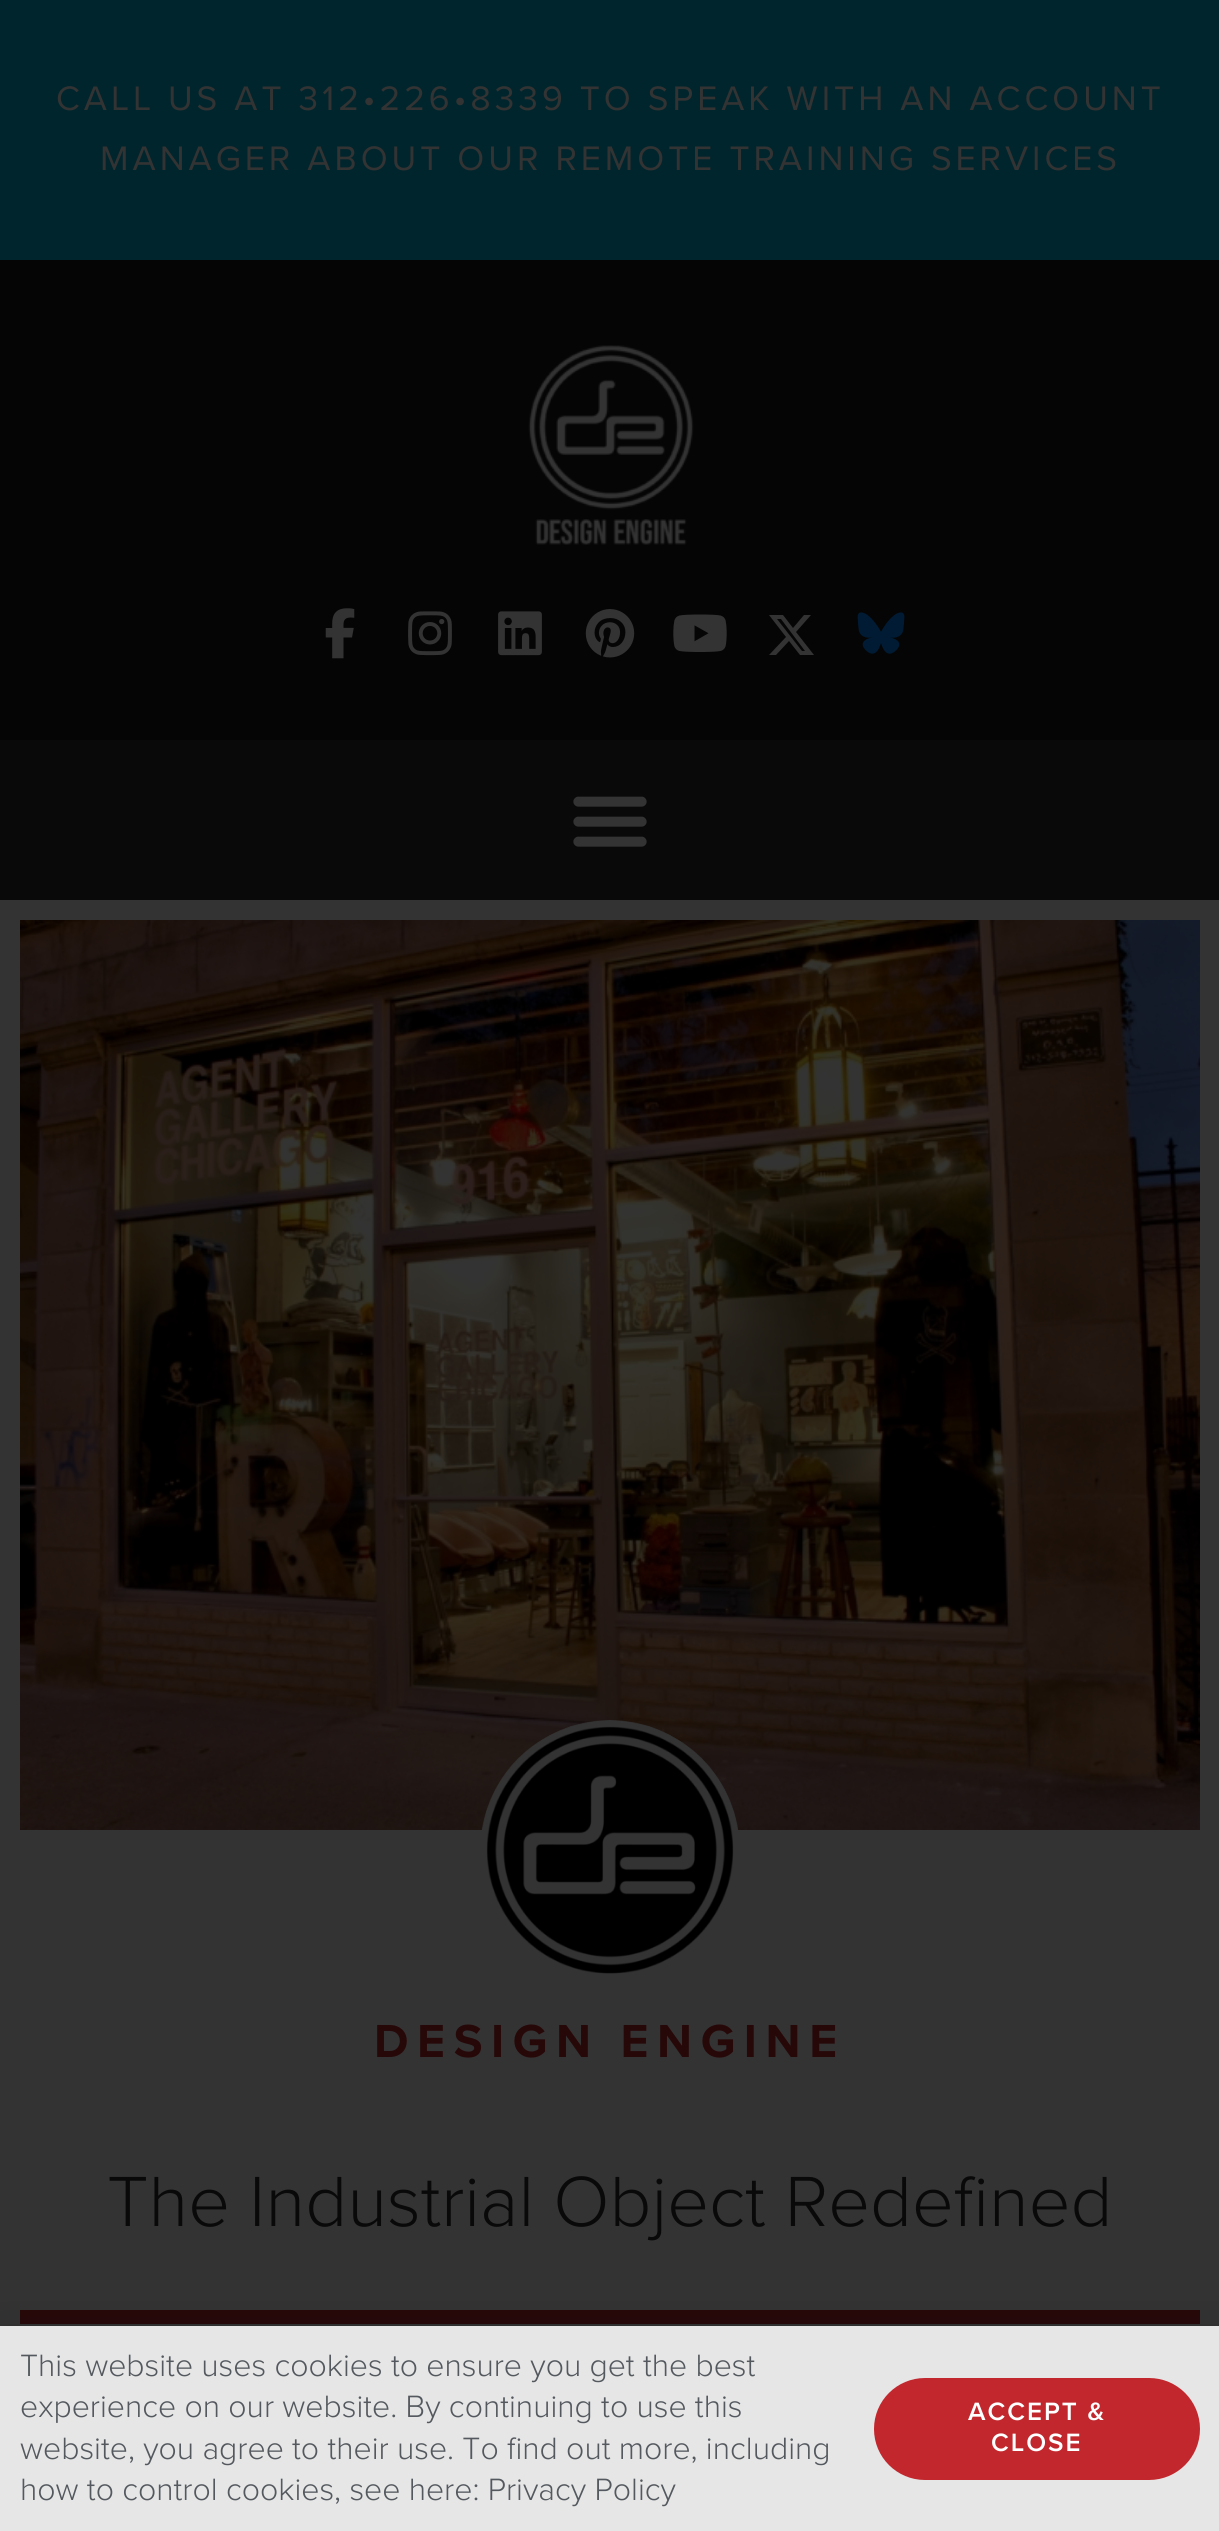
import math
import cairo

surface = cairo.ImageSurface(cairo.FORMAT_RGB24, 1219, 2531)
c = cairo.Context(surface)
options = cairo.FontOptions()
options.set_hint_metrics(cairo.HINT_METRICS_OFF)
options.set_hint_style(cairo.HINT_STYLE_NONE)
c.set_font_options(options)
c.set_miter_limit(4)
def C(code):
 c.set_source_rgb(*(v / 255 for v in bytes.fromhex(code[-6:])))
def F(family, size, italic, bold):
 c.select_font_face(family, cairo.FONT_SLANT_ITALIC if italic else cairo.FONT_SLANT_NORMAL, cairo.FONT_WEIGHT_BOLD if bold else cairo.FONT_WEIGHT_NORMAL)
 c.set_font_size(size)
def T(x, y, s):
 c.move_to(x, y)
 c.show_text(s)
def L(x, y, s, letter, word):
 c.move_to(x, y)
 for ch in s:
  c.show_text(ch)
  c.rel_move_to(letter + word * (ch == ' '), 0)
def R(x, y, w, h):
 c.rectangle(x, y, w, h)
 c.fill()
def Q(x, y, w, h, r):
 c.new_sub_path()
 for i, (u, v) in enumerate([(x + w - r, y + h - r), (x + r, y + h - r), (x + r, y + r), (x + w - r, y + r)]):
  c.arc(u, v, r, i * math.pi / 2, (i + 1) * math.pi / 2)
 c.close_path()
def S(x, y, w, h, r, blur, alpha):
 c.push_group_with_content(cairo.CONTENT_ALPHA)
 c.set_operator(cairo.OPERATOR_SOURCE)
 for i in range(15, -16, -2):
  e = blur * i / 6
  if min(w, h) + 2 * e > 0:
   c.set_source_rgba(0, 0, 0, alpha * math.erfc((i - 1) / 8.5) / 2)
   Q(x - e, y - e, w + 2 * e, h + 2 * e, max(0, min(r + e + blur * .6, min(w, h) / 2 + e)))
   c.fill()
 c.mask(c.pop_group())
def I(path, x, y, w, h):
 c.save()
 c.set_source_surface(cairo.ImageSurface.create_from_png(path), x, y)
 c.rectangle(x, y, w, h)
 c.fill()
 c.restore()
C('333333')
c.paint()
C('01252c')
R(0,0,1219,260)
F('Proxima Nova',35.2,0,0)
C('333333')
L(56,110,'CALL US AT 312•226•8339 TO SPEAK WITH AN ACCOUNT',4,0)
L(100,170,'MANAGER ABOUT OUR REMOTE TRAINING SERVICES',4,0)
C('050505')
R(0,260,1219,480)
I('1.png',528,345,166,200)
I('2.png',325,608,30,51)
I('3.png',408,611,44,45)
I('4.png',498,611,44,45)
I('5.png',585,609,50,49)
I('6.png',673,614,54,38)
C('333333')
c.new_path()
c.move_to(804,615)
c.line_to(811,615)
c.line_to(796,632)
c.line_to(814,655)
c.line_to(800,655)
c.line_to(789,641)
c.line_to(776,655)
c.line_to(769,655)
c.line_to(786,637)
c.line_to(769,615)
c.line_to(783,615)
c.line_to(793,628)
c.close_path()
c.move_to(802,651)
c.line_to(805,651)
c.line_to(781,619)
c.line_to(777,619)
c.close_path()
c.fill()
I('7.png',857,612,48,42)
C('090909')
R(0,740,1219,160)
I('8.png',573,796,74,51)
I('9.png',20,920,1180,910)
I('10.png',481,1720,258,254)
F('Proxima Nova',48,0,1)
C('270809')
L(374,2057,'DESIGN ENGINE',8.6,0)
F('Proxima Nova Light',73.6,0,0)
C('090909')
T(107,2226,'The Industrial Object Redefined')
C('270809')
R(20,2310,1180,14)
C('000000')
S(-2,2336,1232,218,0,23,.2)
C('e6e6e6')
R(0,2326,1219,205)
F('Proxima Nova Light',32,0,0)
C('54595f')
T(20,2376,'This website uses cookies to ensure you get the best')
T(20,2417,'experience on our website. By continuing to use this')
T(20,2459,'website, you agree to their use. To find out more, including')
T(20,2500,'how to control cookies, see here: Privacy Policy')
C('c1272d')
Q(874,2378,326,102,51)
c.fill()
F('Proxima Nova SemiBold',26,0,0)
C('ffffff')
L(968,2420,'ACCEPT &',2,0)
L(991,2451,'CLOSE',2,0)
surface.write_to_png('o.png')
